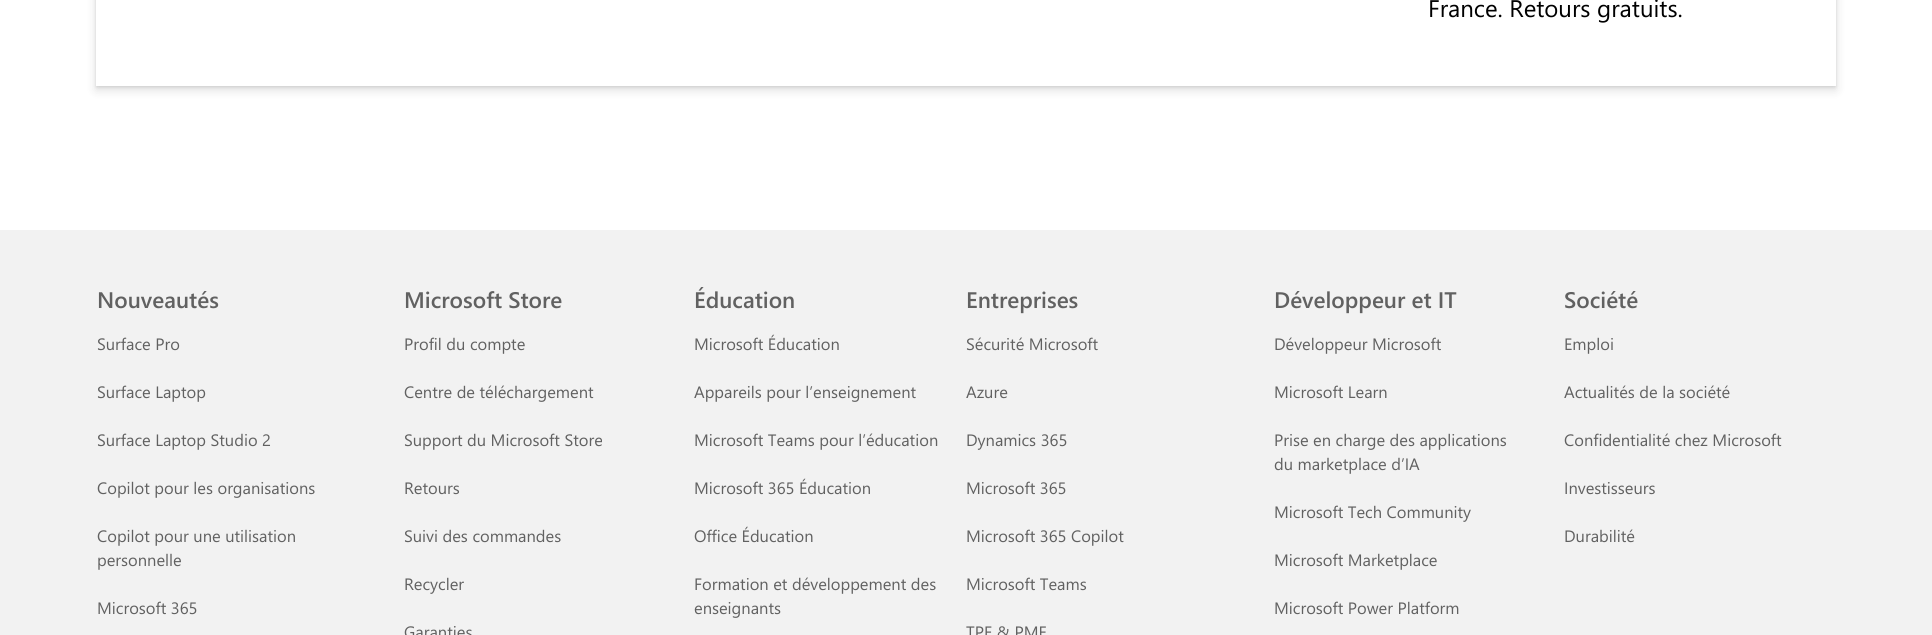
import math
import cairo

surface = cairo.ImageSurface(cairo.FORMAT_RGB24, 1932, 635)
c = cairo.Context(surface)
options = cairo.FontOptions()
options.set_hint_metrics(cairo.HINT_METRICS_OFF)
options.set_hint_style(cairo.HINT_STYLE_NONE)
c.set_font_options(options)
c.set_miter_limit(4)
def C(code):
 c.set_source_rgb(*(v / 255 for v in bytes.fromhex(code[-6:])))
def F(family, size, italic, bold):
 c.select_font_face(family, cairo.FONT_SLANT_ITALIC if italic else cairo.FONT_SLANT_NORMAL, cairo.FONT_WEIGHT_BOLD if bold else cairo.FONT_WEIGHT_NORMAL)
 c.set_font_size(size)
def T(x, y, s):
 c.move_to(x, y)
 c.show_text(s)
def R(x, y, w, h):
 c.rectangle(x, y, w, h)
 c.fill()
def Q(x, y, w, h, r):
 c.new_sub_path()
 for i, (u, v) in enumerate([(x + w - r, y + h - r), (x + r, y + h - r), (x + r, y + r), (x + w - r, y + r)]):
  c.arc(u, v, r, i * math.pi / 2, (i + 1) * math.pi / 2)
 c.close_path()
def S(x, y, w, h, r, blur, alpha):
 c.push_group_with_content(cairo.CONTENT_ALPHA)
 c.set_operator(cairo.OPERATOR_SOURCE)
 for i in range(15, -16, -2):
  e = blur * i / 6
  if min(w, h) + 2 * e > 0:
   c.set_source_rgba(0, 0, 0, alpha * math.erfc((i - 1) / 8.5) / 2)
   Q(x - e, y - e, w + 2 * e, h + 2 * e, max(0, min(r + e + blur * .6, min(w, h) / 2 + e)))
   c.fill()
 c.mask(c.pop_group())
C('ffffff')
c.paint()
C('000000')
S(96,-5,1740,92,0,1.5,.11)
S(96,-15,1740,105,0,5,.13)
C('ffffff')
R(96,0,1740,86)
F('Segoe UI',24,0,0)
C('000000')
T(1428,17,'France. Retours gratuits.')
C('f2f2f2')
R(0,230,1932,405)
F('Segoe UI SemiBold',22.5,0,0)
C('616161')
T(97,308,'Nouveautés')
F('Segoe UI',16.5,0,0)
T(97,350,'Surface Pro')
T(97,398,'Surface Laptop')
T(97,446,'Surface Laptop Studio 2')
T(97,494,'Copilot pour les organisations')
T(97,542,'Copilot pour une utilisation')
T(97,566,'personnelle')
T(97,614,'Microsoft 365')
F('Segoe UI SemiBold',22.5,0,0)
T(404,308,'Microsoft Store')
F('Segoe UI',16.5,0,0)
T(404,350,'Profil du compte')
T(404,398,'Centre de téléchargement')
T(404,446,'Support du Microsoft Store')
T(404,494,'Retours')
T(404,542,'Suivi des commandes')
T(404,590,'Recycler')
T(404,638,'Garanties')
F('Segoe UI SemiBold',22.5,0,0)
T(694,308,'Éducation')
F('Segoe UI',16.5,0,0)
T(694,350,'Microsoft Éducation')
T(694,398,'Appareils pour l’enseignement')
T(694,446,'Microsoft Teams pour l’éducation')
T(694,494,'Microsoft 365 Éducation')
T(694,542,'Office Éducation')
T(694,590,'Formation et développement des')
T(694,614,'enseignants')
F('Segoe UI SemiBold',22.5,0,0)
T(966,308,'Entreprises')
F('Segoe UI',16.5,0,0)
T(966,350,'Sécurité Microsoft')
T(966,398,'Azure')
T(966,446,'Dynamics 365')
T(966,494,'Microsoft 365')
T(966,542,'Microsoft 365 Copilot')
T(966,590,'Microsoft Teams')
T(966,638,'TPE & PME')
F('Segoe UI SemiBold',22.5,0,0)
T(1274,308,'Développeur et IT')
F('Segoe UI',16.5,0,0)
T(1274,350,'Développeur Microsoft')
T(1274,398,'Microsoft Learn')
T(1274,446,'Prise en charge des applications')
T(1274,470,'du marketplace d’IA')
T(1274,518,'Microsoft Tech Community')
T(1274,566,'Microsoft Marketplace')
T(1274,614,'Microsoft Power Platform')
F('Segoe UI SemiBold',22.5,0,0)
T(1564,308,'Société')
F('Segoe UI',16.5,0,0)
T(1564,350,'Emploi')
T(1564,398,'Actualités de la société')
T(1564,446,'Confidentialité chez Microsoft')
T(1564,494,'Investisseurs')
T(1564,542,'Durabilité')
surface.write_to_png('o.png')
